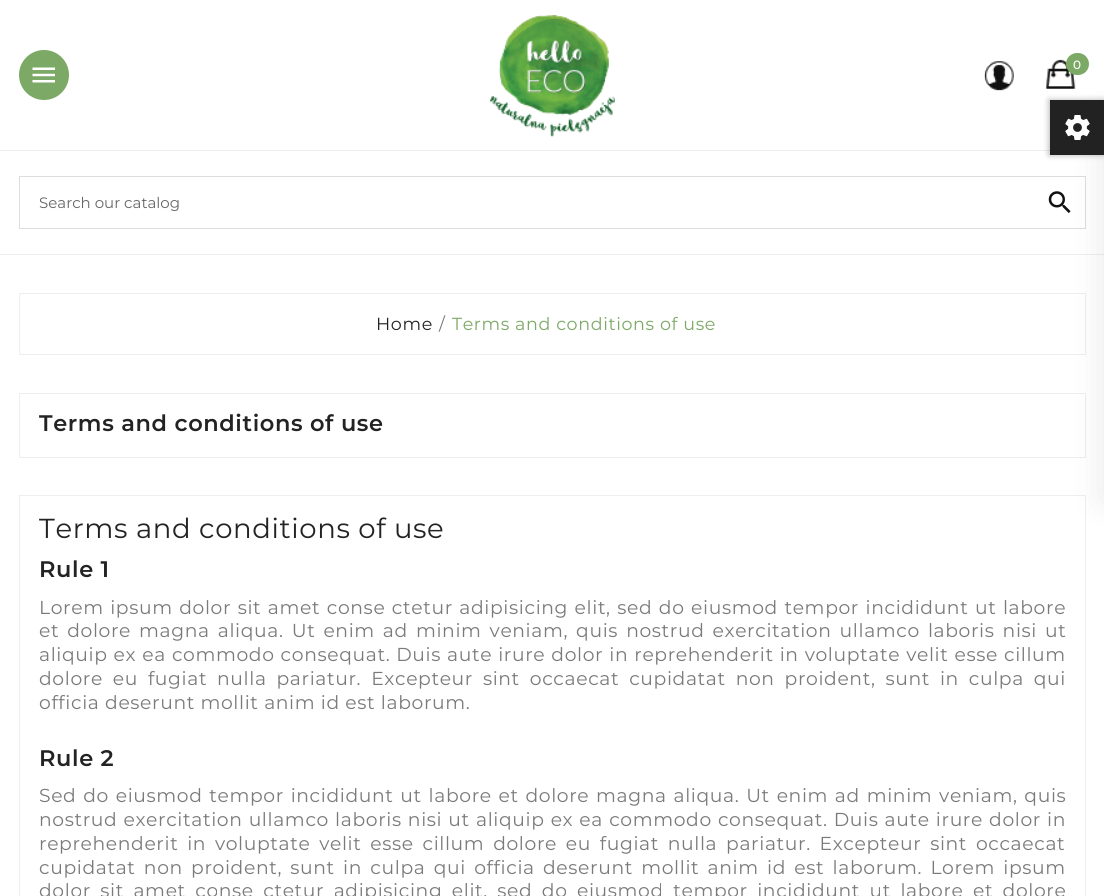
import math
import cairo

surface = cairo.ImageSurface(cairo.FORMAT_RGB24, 1104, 896)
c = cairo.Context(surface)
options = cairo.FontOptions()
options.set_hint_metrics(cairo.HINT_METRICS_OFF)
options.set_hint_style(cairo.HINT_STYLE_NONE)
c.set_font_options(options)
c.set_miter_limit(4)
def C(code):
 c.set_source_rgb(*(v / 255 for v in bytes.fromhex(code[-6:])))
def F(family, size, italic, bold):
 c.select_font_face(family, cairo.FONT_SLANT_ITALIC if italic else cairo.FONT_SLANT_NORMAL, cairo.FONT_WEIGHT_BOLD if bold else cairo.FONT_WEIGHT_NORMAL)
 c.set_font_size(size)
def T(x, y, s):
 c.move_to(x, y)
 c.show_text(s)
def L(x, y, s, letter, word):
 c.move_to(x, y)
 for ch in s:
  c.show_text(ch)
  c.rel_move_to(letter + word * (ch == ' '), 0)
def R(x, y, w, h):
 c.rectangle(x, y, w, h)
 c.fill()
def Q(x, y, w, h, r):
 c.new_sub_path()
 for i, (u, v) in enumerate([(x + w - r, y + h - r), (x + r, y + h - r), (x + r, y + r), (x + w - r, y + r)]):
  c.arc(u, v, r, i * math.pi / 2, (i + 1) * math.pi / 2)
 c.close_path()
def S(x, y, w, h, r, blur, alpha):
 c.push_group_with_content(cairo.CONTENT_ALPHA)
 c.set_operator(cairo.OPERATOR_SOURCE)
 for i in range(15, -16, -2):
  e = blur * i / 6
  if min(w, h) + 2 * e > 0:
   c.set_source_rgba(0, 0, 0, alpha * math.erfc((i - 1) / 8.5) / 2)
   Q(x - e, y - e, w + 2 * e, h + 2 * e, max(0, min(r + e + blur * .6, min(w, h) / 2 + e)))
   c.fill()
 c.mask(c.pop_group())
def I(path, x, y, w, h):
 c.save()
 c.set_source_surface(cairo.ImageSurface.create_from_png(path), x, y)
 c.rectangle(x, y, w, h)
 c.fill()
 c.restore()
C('ffffff')
c.paint()
C('eeeeee')
R(0,254,1104,1)
R(0,150,1050,1)
C('7ca966')
c.arc(44,75,25,0,2 * math.pi)
c.fill()
I('1.png',32,67,23,16)
I('2.png',490,15,125,122)
I('3.png',984,61,30,30)
I('4.png',1046,59,30,30)
Q(1066,53,23,22,11)
c.fill()
F('Montserrat Medium',12,0,0)
C('ffffff')
L(1073,69,'0',.62,0)
c.rectangle(19.5,176.5,1066,52)
C('dddddd')
c.set_line_width(1)
c.stroke()
F('Montserrat',15,0,0)
C('666666')
T(39,208,'Search our catalog')
I('5.png',1048,191,23,22)
c.rectangle(19.5,293.5,1066,61)
C('eeeeee')
c.stroke()
F('Montserrat',17.5,0,0)
C('232323')
L(376,330,'Home',.62,0)
C('7a7a7a')
L(439,330,'/',.62,0)
C('7ca966')
L(452,330,'Terms and conditions of use',.62,0)
c.rectangle(19.5,393.5,1066,64)
C('eeeeee')
c.stroke()
F('Montserrat SemiBold',22.5,0,0)
C('232323')
L(39,431,'Terms and conditions of use',.62,0)
c.rectangle(19.5,495.5,1066,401)
C('eeeeee')
c.stroke()
F('Montserrat',27.5,0,0)
C('232323')
L(39,538,'Terms and conditions of use',.62,0)
F('Montserrat SemiBold',22.5,0,0)
L(39,577,'Rule 1',.62,0)
F('Montserrat',18.75,0,0)
C('7a7a7a')
L(39,614,'Lorem ipsum dolor sit amet conse ctetur adipisicing elit, sed do eiusmod tempor incididunt ut labore',.62,1)
L(39,637,'et dolore magna aliqua. Ut enim ad minim veniam, quis nostrud exercitation ullamco laboris nisi ut',.62,2.5)
L(39,661,'aliquip ex ea commodo consequat. Duis aute irure dolor in reprehenderit in voluptate velit esse cillum',.62,.5)
L(39,685,'dolore eu fugiat nulla pariatur. Excepteur sint occaecat cupidatat non proident, sunt in culpa qui',.62,4.4)
L(39,709,'officia deserunt mollit anim id est laborum.',.62,0)
F('Montserrat SemiBold',22.5,0,0)
C('232323')
L(39,766,'Rule 2',.62,0)
F('Montserrat',18.75,0,0)
C('7a7a7a')
L(39,802,'Sed do eiusmod tempor incididunt ut labore et dolore magna aliqua. Ut enim ad minim veniam, quis',.62,1.25)
L(39,826,'nostrud exercitation ullamco laboris nisi ut aliquip ex ea commodo consequat. Duis aute irure dolor in',.62,.6)
L(39,850,'reprehenderit in voluptate velit esse cillum dolore eu fugiat nulla pariatur. Excepteur sint occaecat',.62,3.25)
L(39,874,'cupidatat non proident, sunt in culpa qui officia deserunt mollit anim id est laborum. Lorem ipsum',.62,2.75)
L(39,897,'dolor sit amet conse ctetur adipisicing elit, sed do eiusmod tempor incididunt ut labore et dolore',.62,3.9)
C('000000')
S(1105,118,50,382,0,17,.1)
S(1049,100,55,55,0,3,.3)
C('222222')
R(1050,100,54,55)
I('6.png',1065,115,25,25)
surface.write_to_png('o.png')
